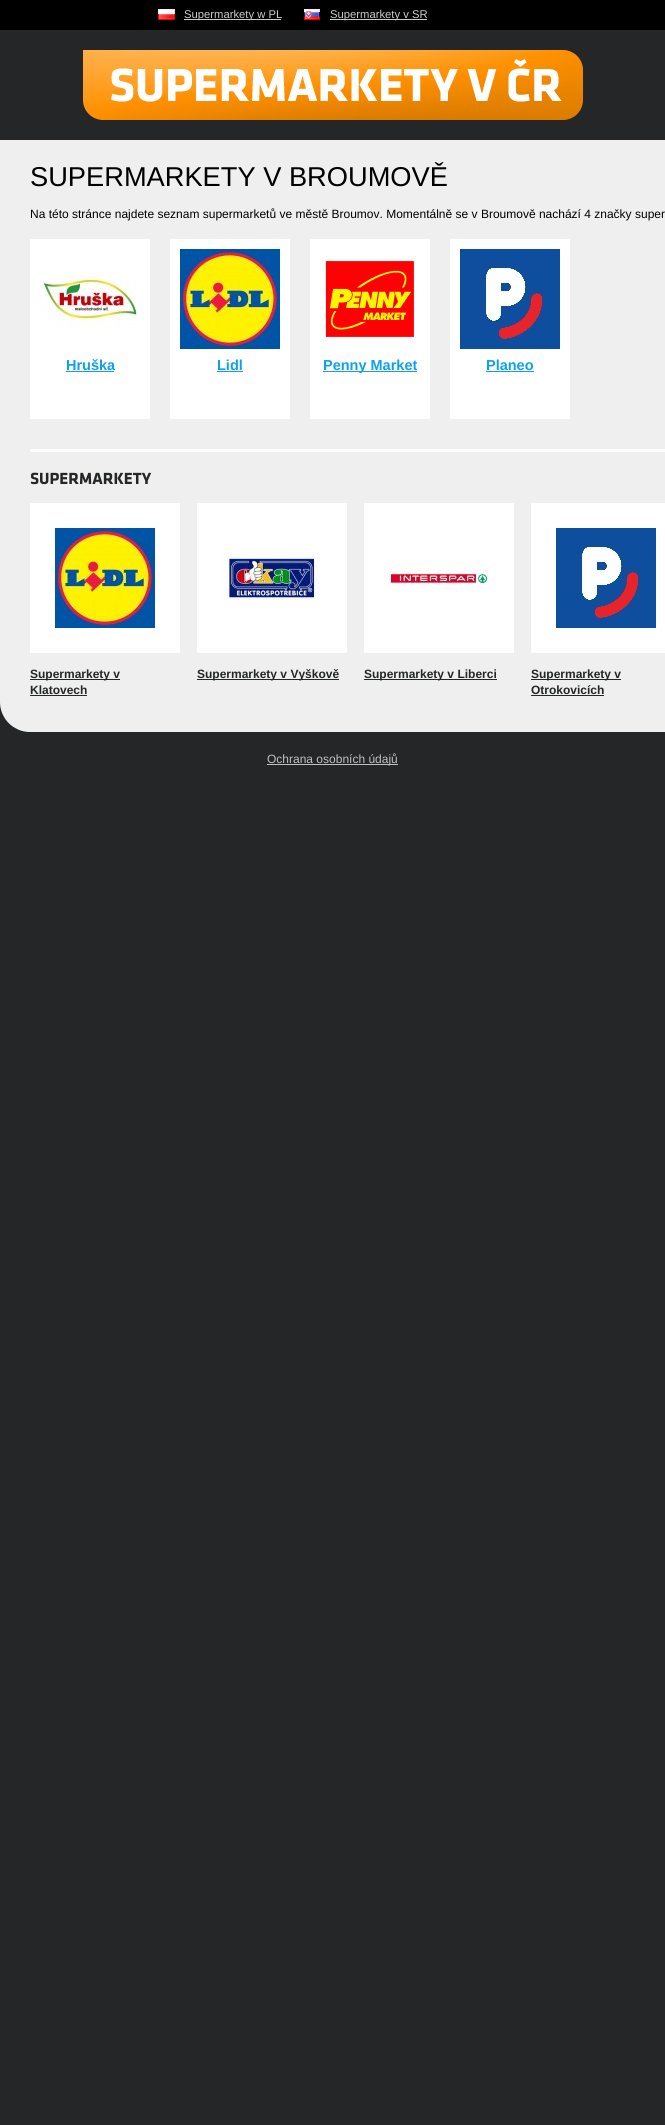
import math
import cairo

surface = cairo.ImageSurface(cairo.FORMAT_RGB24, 665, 2125)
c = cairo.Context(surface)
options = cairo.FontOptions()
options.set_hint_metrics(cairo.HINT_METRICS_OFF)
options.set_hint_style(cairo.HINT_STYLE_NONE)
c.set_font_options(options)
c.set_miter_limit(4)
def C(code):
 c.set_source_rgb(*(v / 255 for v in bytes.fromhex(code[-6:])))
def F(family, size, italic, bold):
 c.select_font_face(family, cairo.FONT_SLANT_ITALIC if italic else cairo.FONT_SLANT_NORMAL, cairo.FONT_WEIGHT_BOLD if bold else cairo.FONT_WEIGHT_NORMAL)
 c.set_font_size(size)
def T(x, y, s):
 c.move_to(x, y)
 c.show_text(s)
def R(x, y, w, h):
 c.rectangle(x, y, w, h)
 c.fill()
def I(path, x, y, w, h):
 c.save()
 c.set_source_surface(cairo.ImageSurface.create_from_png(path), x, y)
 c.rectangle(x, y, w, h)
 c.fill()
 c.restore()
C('242627')
c.paint()
C('000000')
R(0,0,665,30)
I('1.png',158,9,17,11)
C('cccccc')
R(184,19,97,1)
F('Liberation Sans',11.25,0,0)
T(184,18,'Supermarkety w PL')
I('2.png',304,9,16,11)
R(330,19,97,1)
T(330,18,'Supermarkety v SR')
I('3.png',83,50,500,70)
C('efefef')
R(0,140,665,592)
I('4.png',0,703,28,29)
F('Liberation Sans',27.25,0,0)
C('000000')
T(30,186,'SUPERMARKETY V BROUMOVĚ')
F('Liberation Sans',12,0,0)
T(30,218,'Na této stránce najdete seznam supermarketů ve městě Broumov. Momentálně se v Broumově nachází 4 značky super')
C('ffffff')
R(30,239,120,180)
I('5.png',40,270,98,59)
F('Liberation Sans',14.5,0,1)
C('0ea1eb')
T(66,370,'Hruška')
R(66,371,48,1)
C('ffffff')
R(170,239,120,180)
I('6.png',180,249,100,100)
C('0ea1eb')
T(217,370,'Lidl')
R(217,371,26,1)
C('ffffff')
R(310,239,120,180)
I('7.png',325,261,89,76)
C('0ea1eb')
R(323,371,94,1)
T(323,370,'Penny Market')
C('ffffff')
R(450,239,120,180)
I('8.png',460,249,100,100)
C('0ea1eb')
T(486,370,'Planeo')
R(486,371,48,1)
C('ffffff')
R(30,449,635,3)
F('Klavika',16.75,0,1)
C('242627')
T(30,484,'SUPERMARKETY')
C('ffffff')
R(30,503,150,150)
I('6.png',55,528,100,100)
C('242627')
R(30,679,90,1)
F('Liberation Sans',12,0,1)
T(30,678,'Supermarkety v')
T(30,694,'Klatovech')
R(30,695,57,1)
C('ffffff')
R(197,503,150,150)
I('9.png',222,549,96,59)
C('242627')
R(197,679,142,1)
T(197,678,'Supermarkety v Vyškově')
C('ffffff')
R(364,503,150,150)
I('10.png',389,562,100,30)
C('242627')
R(364,679,133,1)
T(364,678,'Supermarkety v Liberci')
C('ffffff')
R(531,503,134,150)
I('8.png',556,528,100,100)
C('242627')
R(531,679,90,1)
T(531,678,'Supermarkety v')
T(531,694,'Otrokovicích')
R(531,695,73,1)
C('c0c0c0')
R(267,764,131,1)
F('Liberation Sans',12,0,0)
T(267,763,'Ochrana osobních údajů')
surface.write_to_png('o.png')
